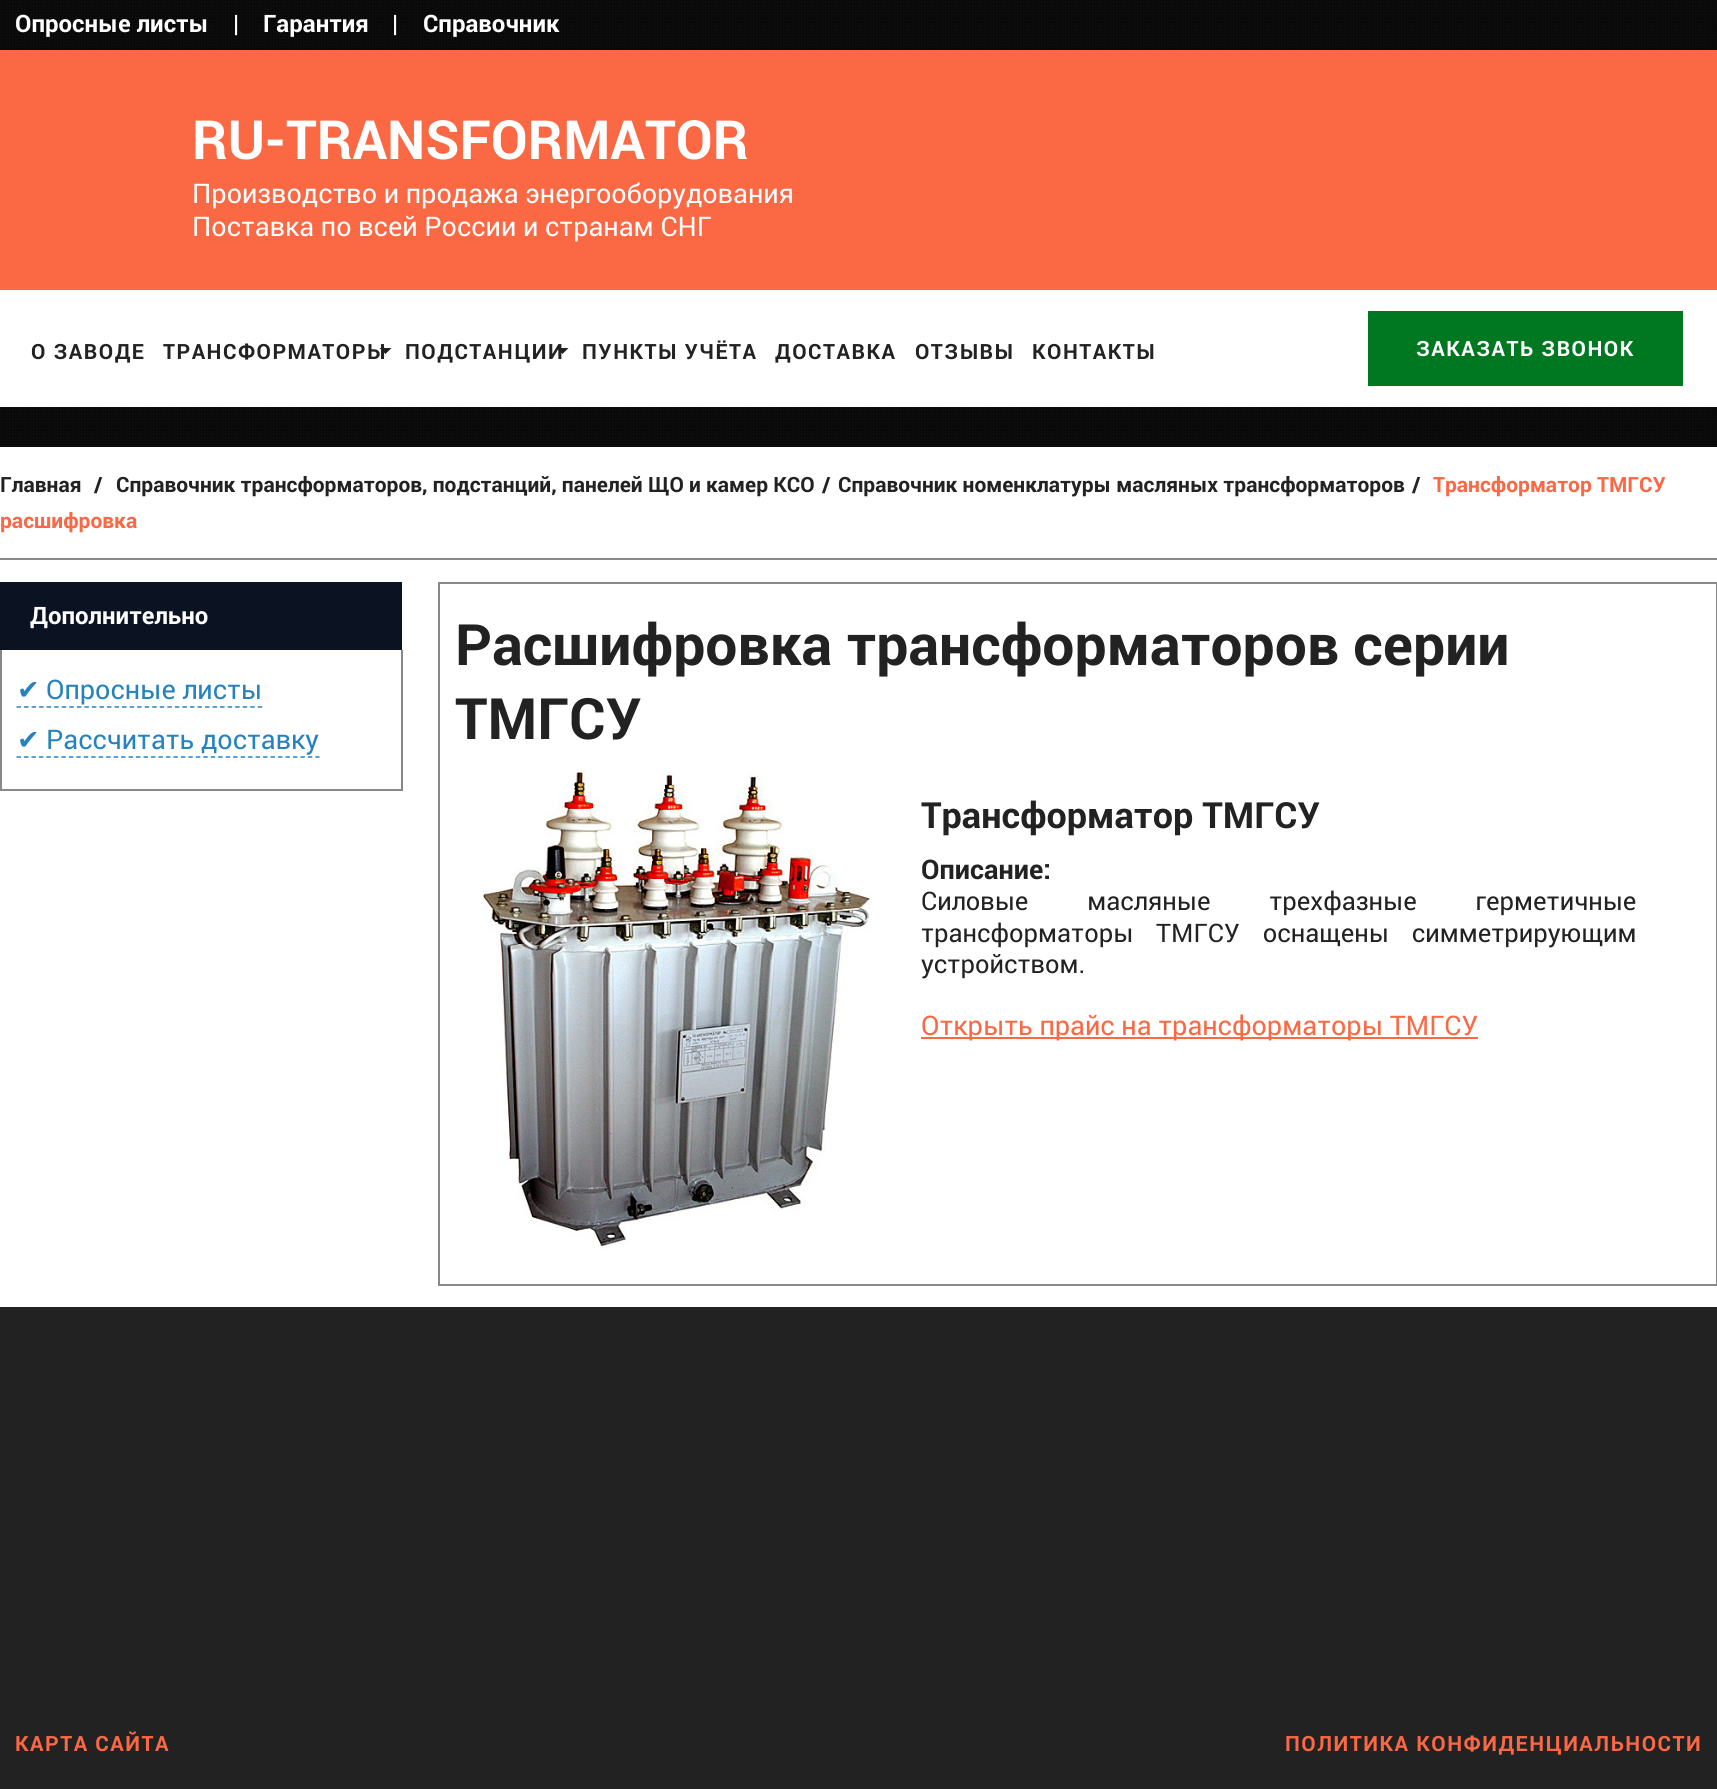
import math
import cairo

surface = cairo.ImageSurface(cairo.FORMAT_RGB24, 1717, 1789)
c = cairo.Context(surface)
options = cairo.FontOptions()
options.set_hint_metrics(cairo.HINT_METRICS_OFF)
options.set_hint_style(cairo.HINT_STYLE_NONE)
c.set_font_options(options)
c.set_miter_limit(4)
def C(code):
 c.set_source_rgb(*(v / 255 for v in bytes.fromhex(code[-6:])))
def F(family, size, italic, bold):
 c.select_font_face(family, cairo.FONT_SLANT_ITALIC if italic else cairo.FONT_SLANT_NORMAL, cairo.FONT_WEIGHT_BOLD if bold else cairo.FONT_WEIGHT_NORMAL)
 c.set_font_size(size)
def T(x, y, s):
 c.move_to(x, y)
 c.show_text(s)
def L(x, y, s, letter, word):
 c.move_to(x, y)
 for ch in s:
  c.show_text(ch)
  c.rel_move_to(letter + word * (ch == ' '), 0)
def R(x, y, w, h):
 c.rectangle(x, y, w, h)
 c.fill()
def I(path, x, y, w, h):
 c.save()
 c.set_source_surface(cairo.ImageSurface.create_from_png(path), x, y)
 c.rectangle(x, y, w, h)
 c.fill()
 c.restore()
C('ffffff')
c.paint()
C('111111')
R(0,0,1717,447)
I('1.png',0,0,1717,447)
F('roboto',24,0,1)
C('ffffff')
T(15,32,'Опросные листы')
T(233,32,'|')
T(263,32,'Гарантия')
T(392,32,'|')
T(423,32,'Справочник')
R(0,290,1717,117)
C('fb6844')
R(0,50,1717,240)
F('roboto',54,0,1)
C('ffffff')
T(192,159,'RU-TRANSFORMATOR')
F('roboto',27,0,0)
T(192,203,'Производство и продажа энергооборудования')
T(192,236,'Поставка по всей России и странам СНГ')
F('roboto',21,0,1)
C('222222')
L(31,359,'О ЗАВОДЕ',1.5,0)
L(163,359,'ТРАНСФОРМАТОРЫ',1.5,0)
c.new_path()
c.move_to(379.5,348)
c.line_to(391.5,348)
c.line_to(385.5,354)
c.close_path()
c.fill()
L(405,359,'ПОДСТАНЦИИ',1.5,0)
c.new_path()
c.move_to(556.5,348)
c.line_to(568.5,348)
c.line_to(562.5,354)
c.close_path()
c.fill()
L(582,359,'ПУНКТЫ УЧЁТА',1.5,0)
L(775,359,'ДОСТАВКА',1.5,0)
L(915,359,'ОТЗЫВЫ',1.5,0)
L(1032,359,'КОНТАКТЫ',1.5,0)
C('007721')
R(1368,311,315,75)
C('ffffff')
L(1416,356,'ЗАКАЗАТЬ ЗВОНОК',1.5,0)
C('888888')
R(0,558,1717,2)
C('222222')
T(0,492,'Главная')
T(94,492,'/')
T(116,492,'Справочник трансформаторов, подстанций, панелей ЩО и камер КСО')
T(822,492,'/')
T(838,492,'Справочник номенклатуры масляных трансформаторов')
T(1412,492,'/')
C('fb6844')
T(1433,492,'Трансформатор ТМГСУ')
T(0,528,'расшифровка')
C('0b1222')
R(0,582,402,68)
F('roboto',24,0,1)
C('ffffff')
T(30,624,'Дополнительно')
C('888888')
R(401,650,2,141)
R(0,789,402,2)
R(0,650,2,141)
F('DejaVu Sans',27,0,0)
C('2682bf')
T(17,699,'✔')
F('roboto',27,0,0)
T(46,699,'Опросные листы')
c.new_path()
c.move_to(16.5,707)
c.line_to(262.5,707)
c.set_line_width(1.5)
c.set_dash([4.5,3.04])
c.stroke()
F('DejaVu Sans',27,0,0)
T(17,749,'✔')
F('roboto',27,0,0)
T(46,749,'Рассчитать доставку')
c.new_path()
c.move_to(16.5,757)
c.line_to(319.5,757)
c.set_dash([4.5,2.97])
c.stroke()
c.rectangle(439,583,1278,702)
C('888888')
c.set_line_width(2)
c.set_dash([])
c.stroke()
F('roboto',57,0,1)
C('222222')
T(455,665,'Расшифровка трансформаторов серии')
T(455,739,'ТМГСУ')
I('2.png',483,770,389,479)
F('roboto',36,0,1)
T(921,828,'Трансформатор ТМГСУ')
F('roboto',27,0,1)
T(921,879,'Описание:')
F('roboto',25.5,0,0)
L(921,910,'Силовые масляные трехфазные герметичные',0,52.5)
L(921,942,'трансформаторы ТМГСУ оснащены симметрирующим',0,16.5)
T(921,973,'устройством.')
C('fb6844')
R(921,1037,557,2)
F('roboto',27,0,0)
T(921,1035,'Открыть прайс на трансформаторы ТМГСУ')
C('222222')
R(0,1307,1717,482)
F('roboto',21,0,1)
C('fb6844')
L(15,1751,'КАРТА САЙТА',1.5,0)
L(1285,1751,'ПОЛИТИКА КОНФИДЕНЦИАЛЬНОСТИ',1.5,0)
surface.write_to_png('o.png')
